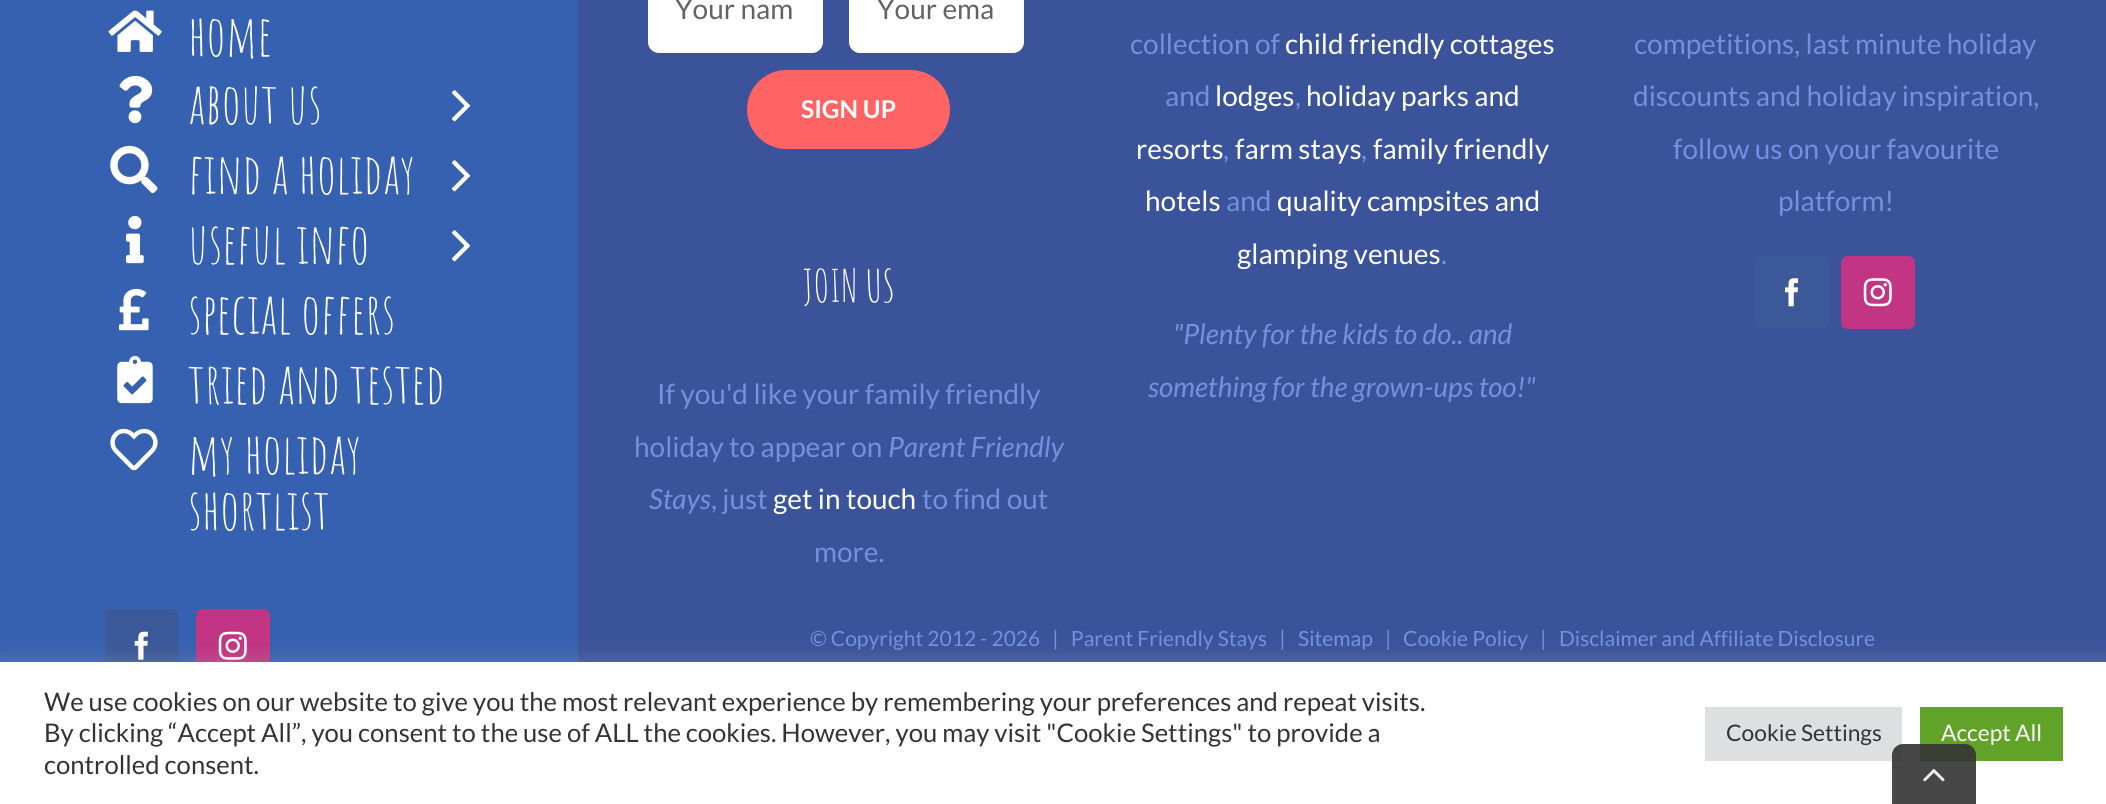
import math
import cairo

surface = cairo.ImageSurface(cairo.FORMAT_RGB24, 2106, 804)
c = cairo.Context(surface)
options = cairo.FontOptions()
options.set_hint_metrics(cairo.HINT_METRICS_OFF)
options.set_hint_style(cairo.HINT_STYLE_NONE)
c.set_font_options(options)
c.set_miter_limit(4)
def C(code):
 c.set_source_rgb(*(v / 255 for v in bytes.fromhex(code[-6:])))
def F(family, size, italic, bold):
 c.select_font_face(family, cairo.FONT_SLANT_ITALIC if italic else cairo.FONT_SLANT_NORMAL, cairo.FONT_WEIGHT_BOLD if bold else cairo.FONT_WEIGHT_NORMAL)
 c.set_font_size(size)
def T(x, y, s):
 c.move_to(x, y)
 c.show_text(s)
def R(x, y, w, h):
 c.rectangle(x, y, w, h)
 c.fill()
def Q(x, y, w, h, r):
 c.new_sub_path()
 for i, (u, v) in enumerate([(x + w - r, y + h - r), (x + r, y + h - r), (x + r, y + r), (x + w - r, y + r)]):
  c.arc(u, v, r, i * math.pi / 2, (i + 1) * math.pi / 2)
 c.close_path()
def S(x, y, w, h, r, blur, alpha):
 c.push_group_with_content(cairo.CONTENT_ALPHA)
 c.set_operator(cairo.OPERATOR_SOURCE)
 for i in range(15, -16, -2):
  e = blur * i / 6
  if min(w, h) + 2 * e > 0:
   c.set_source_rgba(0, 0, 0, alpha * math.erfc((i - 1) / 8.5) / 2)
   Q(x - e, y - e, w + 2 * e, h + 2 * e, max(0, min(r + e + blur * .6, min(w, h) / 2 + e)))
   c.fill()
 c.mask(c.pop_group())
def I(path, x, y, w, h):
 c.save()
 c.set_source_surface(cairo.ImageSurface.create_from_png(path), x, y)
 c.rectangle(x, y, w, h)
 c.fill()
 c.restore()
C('3b539b')
c.paint()
C('3661b0')
R(0,0,578,662)
I('1.png',108,10,54,42)
F('Amatic SC',56,0,0)
C('ffffff')
T(188,56,'home')
I('2.png',119,75,34,49)
T(188,124,'about us')
I('3.png',451,90,20,32)
I('4.png',110,145,48,49)
T(188,194,'find a holiday')
I('3.png',451,160,20,32)
I('5.png',126,215,18,49)
T(188,264,'useful info')
I('3.png',451,230,20,32)
I('6.png',119,288,30,43)
T(188,334,'special offers')
I('7.png',117,355,36,49)
T(188,404,'tried and tested')
I('8.png',110,428,48,43)
T(188,474,'my holiday')
T(188,530,'shortlist')
C('3b5998')
Q(106,610,72,72,6)
c.fill_preserve()
c.stroke()
I('9.png',134,631,14,29)
C('c13584')
Q(197,610,72,72,6)
c.fill_preserve()
c.stroke()
I('10.png',218,631,29,29)
C('ffffff')
Q(649,-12,173,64,10)
c.fill_preserve()
c.stroke()
F('Lato',28,0,0)
C('636363')
T(675,19,'Your nam')
C('ffffff')
Q(850,-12,173,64,10)
c.fill_preserve()
c.stroke()
C('636363')
T(877,19,'Your ema')
C('ff6364')
Q(747,70,203,79,39.5)
c.fill()
F('Lato',24.5,0,1)
C('ffffff')
T(801,118,'SIGN UP')
F('Amatic SC',44,0,0)
T(803,302,'JOIN US')
F('Lato',28,0,0)
C('7291de')
T(657,404,'If you\'d like your family friendly')
T(634,457,'holiday to appear on')
F('Lato',28,1,0)
T(888,457,'Parent Friendly')
T(649,509,'Stays')
F('Lato',28,0,0)
T(711,509,', just')
C('ffffff')
T(773,509,'get in touch')
C('7291de')
T(922,509,'to find out')
T(814,562,'more.')
T(1130,54,'collection of')
C('ffffff')
T(1285,54,'child friendly cottages')
C('7291de')
T(1165,106,'and')
C('ffffff')
T(1215,106,'lodges')
C('7291de')
T(1295,106,',')
C('ffffff')
T(1306,106,'holiday parks and')
T(1136,159,'resorts')
C('7291de')
T(1223,159,',')
C('ffffff')
T(1235,159,'farm stays')
C('7291de')
T(1361,159,',')
C('ffffff')
T(1373,159,'family friendly')
T(1145,211,'hotels')
C('7291de')
T(1226,211,'and')
C('ffffff')
T(1277,211,'quality campsites and')
T(1237,264,'glamping venues')
C('7291de')
T(1441,264,'.')
F('Lato',28,1,0)
T(1173,344,'"Plenty for the kids to do.. and')
T(1148,397,'something for the grown-ups too!"')
F('Lato',28,0,0)
T(1634,54,'competitions, last minute holiday')
T(1633,106,'discounts and holiday inspiration,')
T(1673,159,'follow us on your favourite')
T(1778,211,'platform!')
C('3b5998')
Q(1755,256,74,73,7)
c.fill()
I('11.png',1785,278,14,29)
C('c13584')
Q(1842,257,72,71,6)
c.fill_preserve()
c.stroke()
I('12.png',1863,278,29,29)
F('Lato',21,0,0)
C('7291de')
T(810,646,'© Copyright 2012 - 2026   |   Parent Friendly Stays   |')
T(1298,646,'Sitemap')
T(1385,646,'|')
T(1403,646,'Cookie Policy')
T(1540,646,'|')
T(1559,646,'Disclaimer and Affiliate Disclosure')
C('acabab')
S(0,660,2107,143,0,9,.3)
C('ffffff')
R(0,662,2106,142)
F('Lato',25.67,0,0)
C('333333')
T(44,711,'We use cookies on our website to give you the most relevant experience by remembering your preferences and repeat visits.')
T(44,742,'By clicking “Accept All”, you consent to the use of ALL the cookies. However, you may visit "Cookie Settings" to provide a')
T(44,774,'controlled consent.')
C('dedfe0')
R(1705,707,197,54)
F('Lato',22.75,0,0)
C('333333')
T(1726,741,'Cookie Settings')
C('61a229')
R(1920,707,143,54)
C('ffffff')
T(1941,741,'Accept All')
c.set_source_rgba(0.2,0.2,0.2,0.9)
c.new_path()
c.move_to(1903,744)
c.line_to(1965,744)
c.curve_to(1971,744,1976,749,1976,755)
c.line_to(1976,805)
c.line_to(1892,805)
c.line_to(1892,755)
c.curve_to(1892,749,1897,744,1903,744)
c.close_path()
c.fill()
I('13.png',1923,769,22,13)
surface.write_to_png('o.png')
